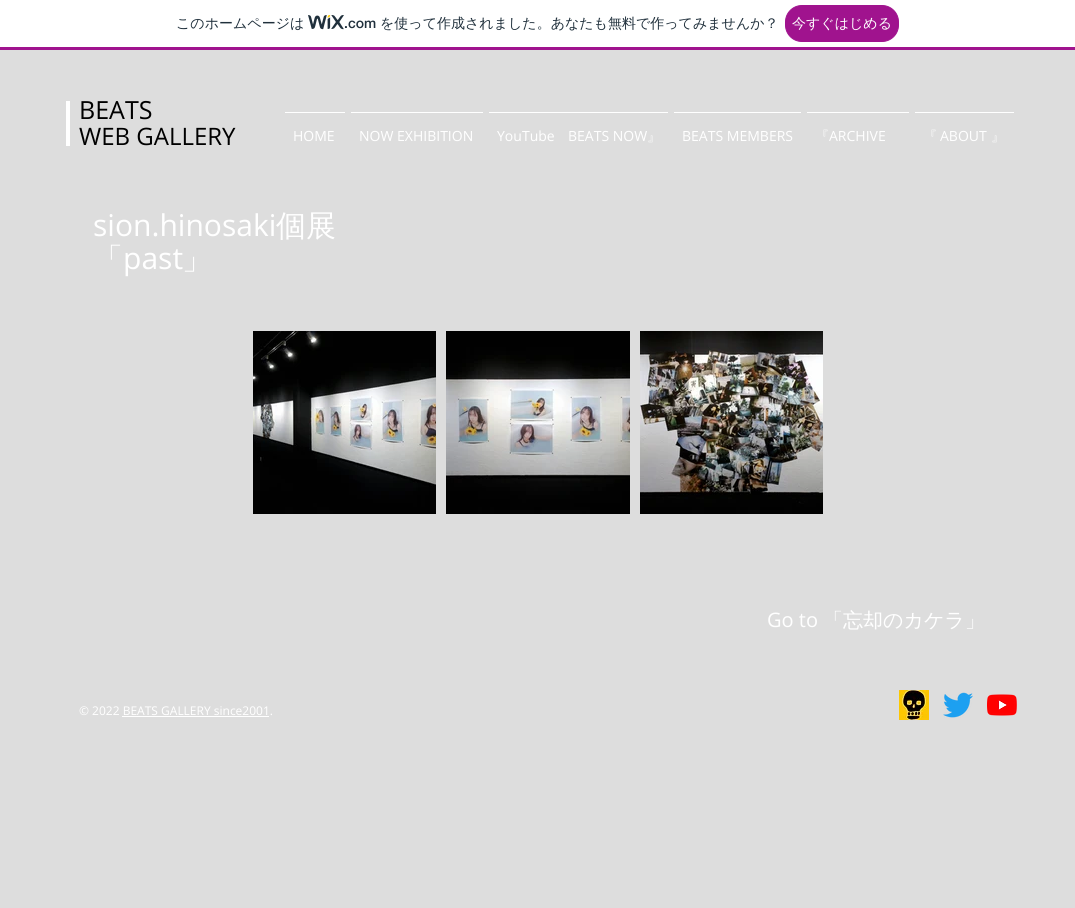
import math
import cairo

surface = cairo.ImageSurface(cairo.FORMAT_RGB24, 1075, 908)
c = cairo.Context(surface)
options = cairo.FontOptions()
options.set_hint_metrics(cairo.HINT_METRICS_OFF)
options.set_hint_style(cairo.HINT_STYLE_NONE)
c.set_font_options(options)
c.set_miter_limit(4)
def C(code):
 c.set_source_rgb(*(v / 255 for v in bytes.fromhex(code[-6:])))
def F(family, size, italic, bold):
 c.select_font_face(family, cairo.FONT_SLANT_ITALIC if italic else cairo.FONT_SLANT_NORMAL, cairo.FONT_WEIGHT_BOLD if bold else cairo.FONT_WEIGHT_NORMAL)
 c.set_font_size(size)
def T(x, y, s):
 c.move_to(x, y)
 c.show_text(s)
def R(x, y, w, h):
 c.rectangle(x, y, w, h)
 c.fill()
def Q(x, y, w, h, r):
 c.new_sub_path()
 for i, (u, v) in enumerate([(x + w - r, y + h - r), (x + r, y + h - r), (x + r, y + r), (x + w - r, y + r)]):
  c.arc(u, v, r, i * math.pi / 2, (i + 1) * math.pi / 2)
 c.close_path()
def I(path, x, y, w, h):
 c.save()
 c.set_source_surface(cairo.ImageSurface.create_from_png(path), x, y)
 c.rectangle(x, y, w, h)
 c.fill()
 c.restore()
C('ffffff')
c.paint()
C('a0138e')
R(0,47,1075,3)
F('WenQuanYi Zen Hei Medium',14,0,0)
C('20303c')
T(176,28,'このホームページは')
I('1.png',308,15,36,15)
F('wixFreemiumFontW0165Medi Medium',14,0,0)
T(344,28,'.com')
F('WenQuanYi Zen Hei Medium',14,0,0)
T(380,28,'を使って作成されました。あなたも無料で作ってみませんか？')
C('a0138e')
Q(785.5,5.5,113,36,16.5)
c.fill_preserve()
c.set_line_width(1)
c.stroke()
C('ffffff')
T(792,28,'今すぐはじめる')
C('dddddd')
R(0,50,1075,858)
C('ffffff')
R(66,101,4,45)
F('Open Sans',25,0,0)
C('000000')
T(79,119,'BEATS')
F('Open Sans',24,0,0)
T(79,145,'WEB GALLERY')
C('ffffff')
R(285,112,60,1)
F('Open Sans',14,0,0)
T(293,141,'HOME')
R(351,112,132,1)
T(359,141,'NOW EXHIBITION')
R(489,112,179,1)
T(497,141,'YouTube')
T(568,141,'BEATS NOW')
F('WenQuanYi Zen Hei Medium',14,0,0)
T(647,141,'』')
R(674,112,127,1)
F('Open Sans',14,0,0)
T(682,141,'BEATS MEMBERS')
R(807,112,102,1)
F('WenQuanYi Zen Hei Medium',14,0,0)
T(815,141,'『')
F('Open Sans',14,0,0)
T(829,141,'ARCHIVE')
R(915,112,99,1)
F('WenQuanYi Zen Hei Medium',14,0,0)
T(923,141,'『')
F('Open Sans',14,0,0)
T(940,141,'ABOUT')
F('WenQuanYi Zen Hei Medium',14,0,0)
T(991,141,'』')
F('Open Sans',30,0,0)
T(93,236,'sion.hinosaki')
F('WenQuanYi Zen Hei Medium',30,0,0)
T(276,236,'個展')
T(93,269,'「')
F('Open Sans',30,0,0)
T(123,269,'past')
F('WenQuanYi Zen Hei Medium',30,0,0)
T(182,269,'」')
I('2.png',253,331,183,183)
I('3.png',446,331,184,183)
I('4.png',640,331,183,183)
F('Open Sans',20,0,0)
T(767,627,'Go to')
F('WenQuanYi Zen Hei Medium',20,0,0)
T(823,627,'「忘却のカケラ」')
F('Open Sans',12,0,0)
T(79,715,'© 2022 BEATS GALLERY since2001.')
R(122,716,147,1)
I('5.png',899,690,30,30)
I('6.png',943,692,30,26)
I('7.png',987,694,30,22)
surface.write_to_png('o.png')
